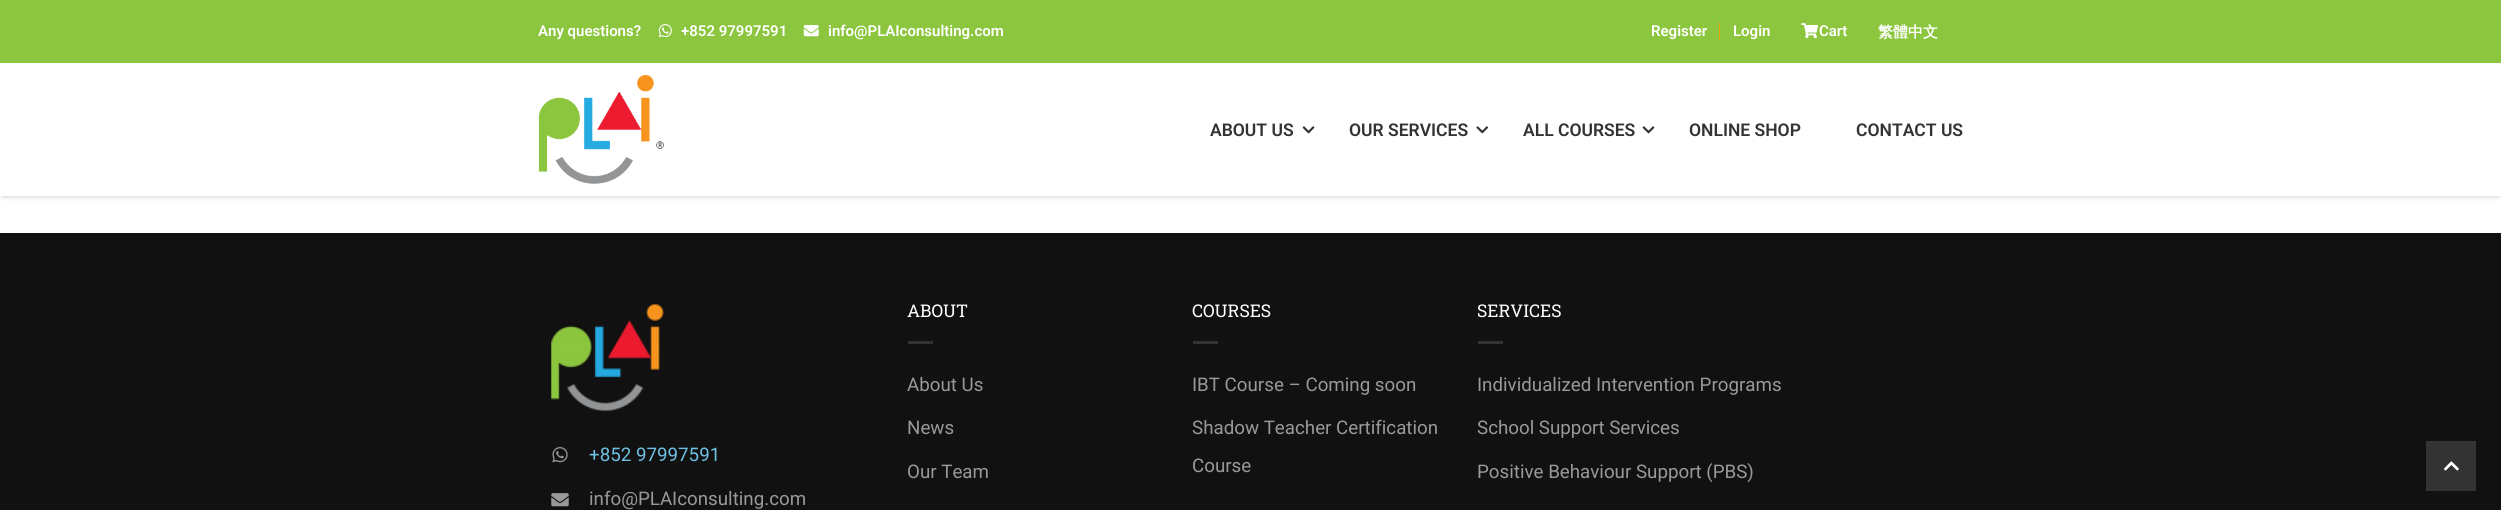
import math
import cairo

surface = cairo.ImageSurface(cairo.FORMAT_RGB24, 2501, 510)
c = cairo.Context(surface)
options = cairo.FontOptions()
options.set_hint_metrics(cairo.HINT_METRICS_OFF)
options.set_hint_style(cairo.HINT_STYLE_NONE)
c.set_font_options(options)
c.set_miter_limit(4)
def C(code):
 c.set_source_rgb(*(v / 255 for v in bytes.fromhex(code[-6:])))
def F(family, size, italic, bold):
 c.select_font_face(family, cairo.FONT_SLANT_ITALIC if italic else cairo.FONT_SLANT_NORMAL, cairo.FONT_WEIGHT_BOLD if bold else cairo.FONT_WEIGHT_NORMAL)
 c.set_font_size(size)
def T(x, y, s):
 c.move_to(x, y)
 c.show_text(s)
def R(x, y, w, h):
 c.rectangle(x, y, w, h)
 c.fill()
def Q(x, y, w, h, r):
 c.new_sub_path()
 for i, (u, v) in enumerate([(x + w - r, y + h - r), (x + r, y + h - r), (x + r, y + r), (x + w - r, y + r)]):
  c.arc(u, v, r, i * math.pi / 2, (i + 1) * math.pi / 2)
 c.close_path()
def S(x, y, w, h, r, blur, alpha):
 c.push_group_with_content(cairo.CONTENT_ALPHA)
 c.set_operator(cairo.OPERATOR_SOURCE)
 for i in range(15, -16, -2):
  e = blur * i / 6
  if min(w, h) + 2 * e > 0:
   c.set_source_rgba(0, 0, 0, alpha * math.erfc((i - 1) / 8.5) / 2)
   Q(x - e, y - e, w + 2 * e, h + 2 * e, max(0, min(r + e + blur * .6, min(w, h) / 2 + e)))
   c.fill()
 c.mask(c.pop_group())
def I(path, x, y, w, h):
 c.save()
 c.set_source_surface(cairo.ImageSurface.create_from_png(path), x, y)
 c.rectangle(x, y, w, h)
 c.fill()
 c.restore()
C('ffffff')
c.paint()
C('2a2a2a')
S(3,4,2496,191,0,3,.4)
C('ffffff')
R(0,63,2501,133)
C('8cc63f')
R(0,0,2501,63)
F('Roboto SemiBold',15,0,0)
C('ffffff')
T(538,36,'Any questions?')
I('1.png',658,24,14,14)
T(681,36,'+852 97997591')
I('2.png',803,25,16,12)
T(828,36,'info@PLAIconsulting.com')
T(1651,36,'Register')
C('e4a50d')
R(1719,23,1,17)
C('ffffff')
T(1733,36,'Login')
I('3.png',1801,23,18,16)
T(1819,36,'Cart')
F('WenQuanYi Zen Hei',15,0,1)
T(1878,37,'繁體中文')
I('4.png',538,75,126,109)
F('Roboto SemiBold',17.5,0,0)
C('333333')
T(1210,136,'ABOUT US')
I('5.png',1302,126,13,8)
T(1349,136,'OUR SERVICES')
I('6.png',1476,126,13,8)
T(1523,136,'ALL COURSES')
I('5.png',1642,126,13,8)
T(1689,136,'ONLINE SHOP')
T(1856,136,'CONTACT US')
C('111111')
R(0,233,2501,277)
I('7.png',551,303,113,108)
I('8.png',552,447,16,16)
F('Roboto',18.75,0,0)
C('6ec1e4')
T(589,461,'+852 97997591')
I('9.png',551,493,18,14)
C('999999')
T(589,505,'info@PLAIconsulting.com')
F('Roboto Slab',17.5,0,0)
C('ffffff')
T(907,317,'ABOUT')
C('333333')
R(908,341,25,3)
F('Roboto',18.75,0,0)
C('999999')
T(907,391,'About Us')
T(907,434,'News')
T(907,478,'Our Team')
F('Roboto Slab',17.5,0,0)
C('ffffff')
T(1192,317,'COURSES')
C('333333')
R(1193,341,25,3)
F('Roboto',18.75,0,0)
C('999999')
T(1192,391,'IBT Course – Coming soon')
T(1192,434,'Shadow Teacher Certification')
T(1192,472,'Course')
F('Roboto Slab',17.5,0,0)
C('ffffff')
T(1477,317,'SERVICES')
C('333333')
R(1478,341,25,3)
F('Roboto',18.75,0,0)
C('999999')
T(1477,391,'Individualized Intervention Programs')
T(1477,434,'School Support Services')
T(1477,478,'Positive Behaviour Support (PBS)')
C('333333')
R(2426,441,50,50)
I('10.png',2444,461,15,10)
surface.write_to_png('o.png')
